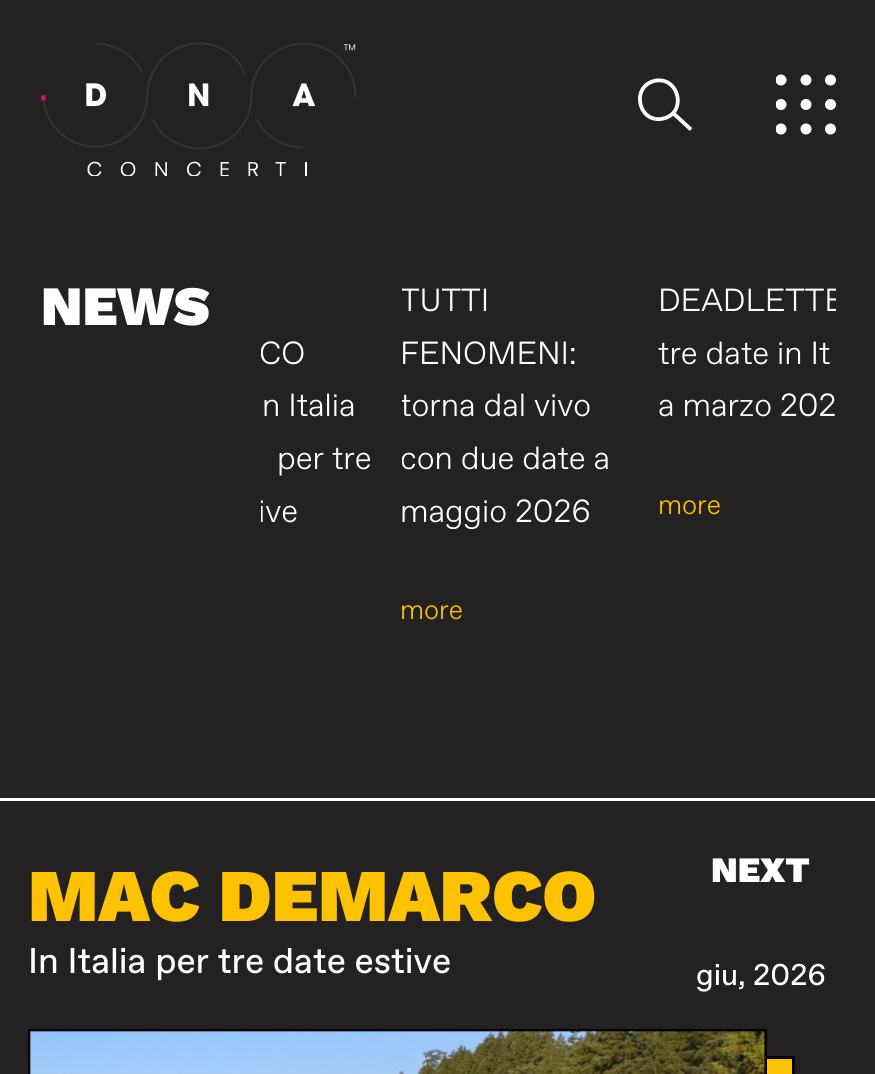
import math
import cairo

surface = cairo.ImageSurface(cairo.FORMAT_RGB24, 875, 1074)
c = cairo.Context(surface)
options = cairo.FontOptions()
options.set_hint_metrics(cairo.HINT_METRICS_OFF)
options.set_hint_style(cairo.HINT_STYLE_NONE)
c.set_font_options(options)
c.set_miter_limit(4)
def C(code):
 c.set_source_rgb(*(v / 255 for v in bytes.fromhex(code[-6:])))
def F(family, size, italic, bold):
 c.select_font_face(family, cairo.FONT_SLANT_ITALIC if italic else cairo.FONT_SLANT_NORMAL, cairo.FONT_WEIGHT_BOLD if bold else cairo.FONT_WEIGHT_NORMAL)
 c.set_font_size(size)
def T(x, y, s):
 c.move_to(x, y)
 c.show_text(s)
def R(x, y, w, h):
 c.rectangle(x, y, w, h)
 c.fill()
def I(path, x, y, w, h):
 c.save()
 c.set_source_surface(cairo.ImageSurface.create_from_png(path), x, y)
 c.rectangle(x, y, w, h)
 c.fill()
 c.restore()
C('242122')
c.paint()
I('1.png',42,42,315,108)
I('2.png',41,44,315,132)
c.new_path()
c.move_to(654,81)
c.curve_to(678.5,75,688,112.5,663.5,118.5)
c.curve_to(639,124.5,630,87.5,654,81)
c.close_path()
c.move_to(673,113)
c.line_to(691,129.5)
C('ffffff')
c.set_line_width(3.8)
c.stroke()
c.save()
c.rectangle(776,74,60,61)
c.clip()
c.arc(781,80,5.5,0,2 * math.pi)
c.fill()
c.arc(781,104.5,5.5,0,2 * math.pi)
c.fill()
c.arc(781,129,5.5,0,2 * math.pi)
c.fill()
c.restore()
c.arc(806,80,5.5,0,2 * math.pi)
c.fill()
c.arc(806,104.5,5.5,0,2 * math.pi)
c.fill()
c.arc(806,129,5.5,0,2 * math.pi)
c.fill()
c.arc(830.5,80,5.5,0,2 * math.pi)
c.fill()
c.arc(830.5,104.5,5.5,0,2 * math.pi)
c.fill()
c.arc(830.5,129,5.5,0,2 * math.pi)
c.fill()
F('Work Sans Black',55.5,0,0)
T(41,325,'NEWS')
c.save()
c.rectangle(261,275,110,360)
c.clip()
F('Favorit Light',32,0,0)
T(259,364,'CO')
c.restore()
F('Favorit Light',32,0,0)
T(262,416,'n Italia')
T(277,469,'per tre')
c.save()
c.rectangle(261,275,110,360)
c.clip()
T(258,522,'ive')
c.restore()
c.save()
c.rectangle(402,275,228,360)
c.clip()
T(400,311,'TUTTI')
c.restore()
T(400,364,'FENOMENI:')
c.save()
c.rectangle(402,275,228,360)
c.clip()
T(400,416,'torna dal vivo')
T(400,469,'con due date a')
c.restore()
T(400,522,'maggio 2026')
F('Favorit Light',27,0,0)
C('fec200')
T(400,619,'more')
c.save()
c.rectangle(657,275,179,256)
c.clip()
F('Favorit Light',32,0,0)
C('ffffff')
T(658,311,'DEADLETTE')
c.restore()
F('Favorit Light',32,0,0)
C('ffffff')
T(658,364,'tre date in It')
T(658,416,'a marzo 202')
F('Favorit Light',27,0,0)
C('fec200')
T(658,514,'more')
C('ffffff')
R(0,798,875,3)
F('Work Sans Black',74.25,0,0)
C('fec200')
T(28,921,'MAC DEMARCO')
F('Favorit',35.75,0,0)
C('ffffff')
T(28,973,'In Italia per tre date estive')
F('Work Sans Black',35.75,0,0)
T(711,882,'NEXT')
F('Favorit',30,0,0)
T(696,985,'giu, 2026')
C('fec200')
R(767,1059,25,15)
c.rectangle(56.5,1057.5,737,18)
C('000000')
c.set_line_width(3)
c.stroke()
c.rectangle(29.5,1030.5,736,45)
c.stroke()
I('3.png',29,1030,737,44)
surface.write_to_png('o.png')
